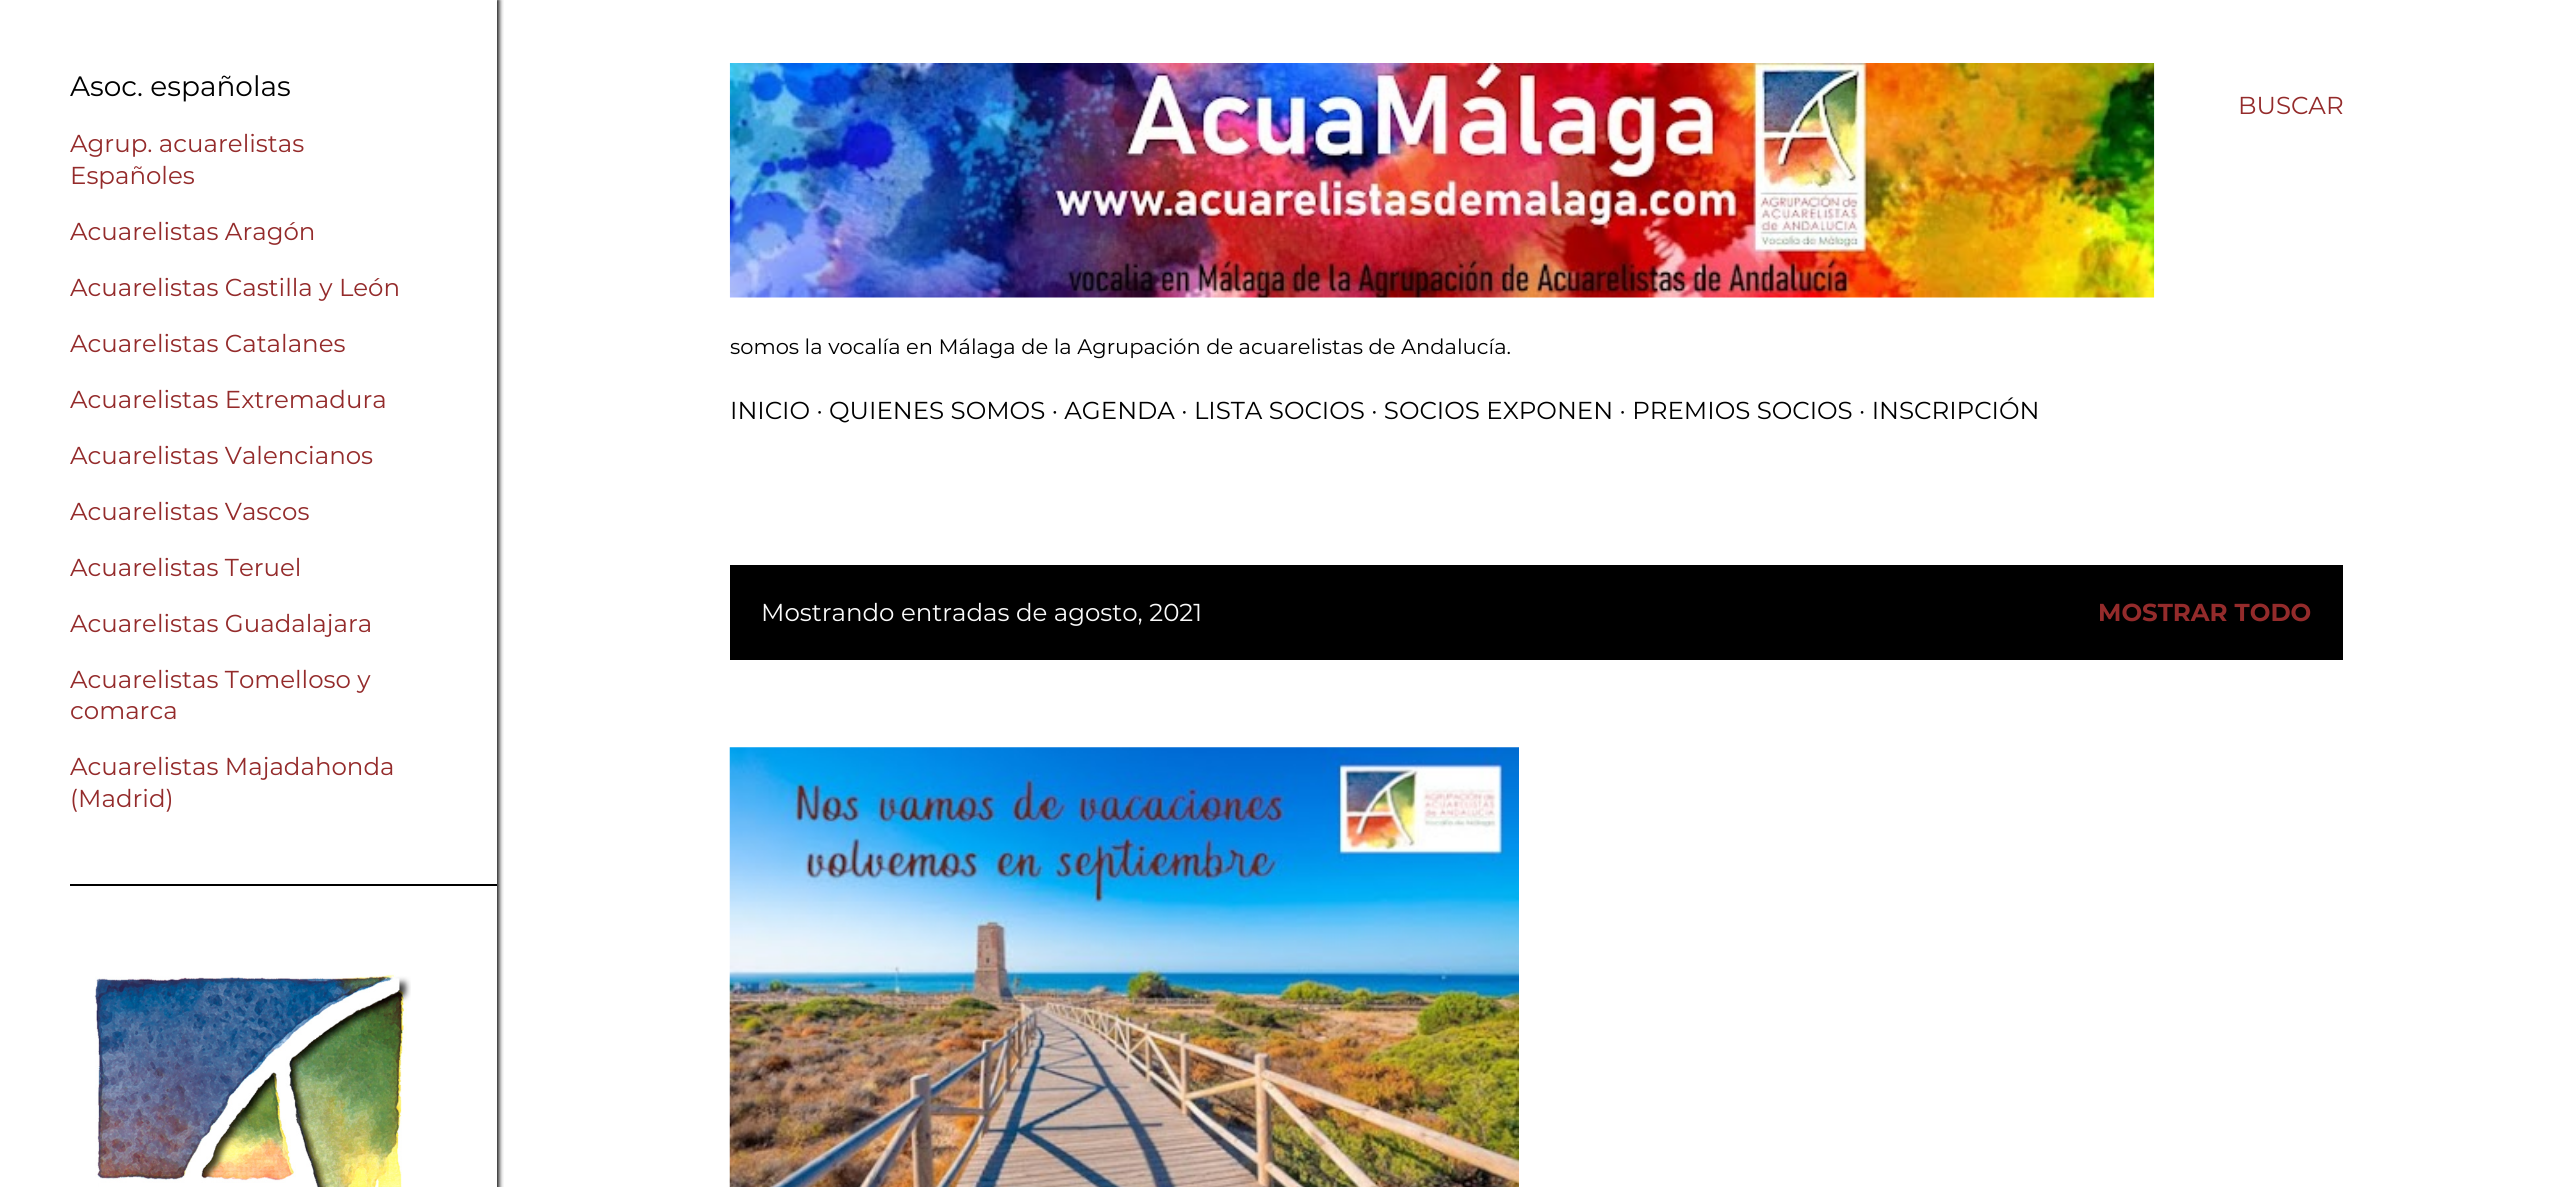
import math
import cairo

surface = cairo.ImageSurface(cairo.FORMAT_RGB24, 2575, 1187)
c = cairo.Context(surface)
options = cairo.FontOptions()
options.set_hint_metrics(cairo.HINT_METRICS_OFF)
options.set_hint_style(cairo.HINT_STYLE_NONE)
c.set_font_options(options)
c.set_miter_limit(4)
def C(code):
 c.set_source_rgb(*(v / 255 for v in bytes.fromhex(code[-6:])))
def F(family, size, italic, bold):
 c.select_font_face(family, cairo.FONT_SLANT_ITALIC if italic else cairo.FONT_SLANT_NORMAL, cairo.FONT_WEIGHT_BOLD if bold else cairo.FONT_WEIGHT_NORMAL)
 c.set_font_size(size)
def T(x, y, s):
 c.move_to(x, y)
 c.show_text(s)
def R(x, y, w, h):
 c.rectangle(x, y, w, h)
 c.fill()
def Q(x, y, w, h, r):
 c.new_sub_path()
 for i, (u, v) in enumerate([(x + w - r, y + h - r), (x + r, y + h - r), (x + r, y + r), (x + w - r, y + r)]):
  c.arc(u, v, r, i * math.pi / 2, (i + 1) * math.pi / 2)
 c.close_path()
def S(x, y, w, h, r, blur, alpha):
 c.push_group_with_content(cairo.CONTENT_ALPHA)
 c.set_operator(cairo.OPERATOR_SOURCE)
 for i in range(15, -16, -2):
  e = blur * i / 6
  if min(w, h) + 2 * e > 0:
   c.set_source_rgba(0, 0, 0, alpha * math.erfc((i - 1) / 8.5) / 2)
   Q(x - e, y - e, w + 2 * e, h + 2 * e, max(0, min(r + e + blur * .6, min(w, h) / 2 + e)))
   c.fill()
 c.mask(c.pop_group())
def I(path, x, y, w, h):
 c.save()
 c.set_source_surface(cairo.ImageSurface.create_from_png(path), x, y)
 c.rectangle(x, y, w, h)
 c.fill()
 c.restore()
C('ffffff')
c.paint()
c.save()
c.rectangle(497,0,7,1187)
c.clip()
C('000000')
S(2,0,497,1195,0,2.5,1)
c.restore()
F('Montserrat',28,0,0)
C('000000')
T(70,96,'Asoc. españolas')
F('Montserrat',24.5,0,0)
C('942b2b')
T(70,152,'Agrup. acuarelistas')
T(70,184,'Españoles')
T(70,240,'Acuarelistas Aragón')
T(70,296,'Acuarelistas Castilla y León')
T(70,352,'Acuarelistas Catalanes')
T(70,408,'Acuarelistas Extremadura')
T(70,464,'Acuarelistas Valencianos')
T(70,520,'Acuarelistas Vascos')
T(70,576,'Acuarelistas Teruel')
T(70,632,'Acuarelistas Guadalajara')
T(70,688,'Acuarelistas Tomelloso y')
T(70,719,'comarca')
T(70,775,'Acuarelistas Majadahonda')
T(70,807,'(Madrid)')
C('000000')
R(70,884,427,2)
I('1.png',94,974,317,213)
C('942b2b')
T(2238,114,'BUSCAR')
I('2.png',729,63,1426,235)
F('Montserrat',21,0,0)
C('000000')
T(730,354,'somos la vocalía en Málaga de la Agrupación de acuarelistas de Andalucía.')
F('Montserrat',24.5,0,0)
T(730,419,'INICIO · QUIENES SOMOS · AGENDA · LISTA SOCIOS · SOCIOS EXPONEN · PREMIOS SOCIOS · INSCRIPCIÓN')
R(730,565,1613,95)
C('fafafa')
T(761,621,'Mostrando entradas de agosto, 2021')
F('Montserrat',24.5,0,1)
C('942b2b')
T(2098,621,'MOSTRAR TODO')
I('3.png',729,747,790,440)
surface.write_to_png('o.png')
